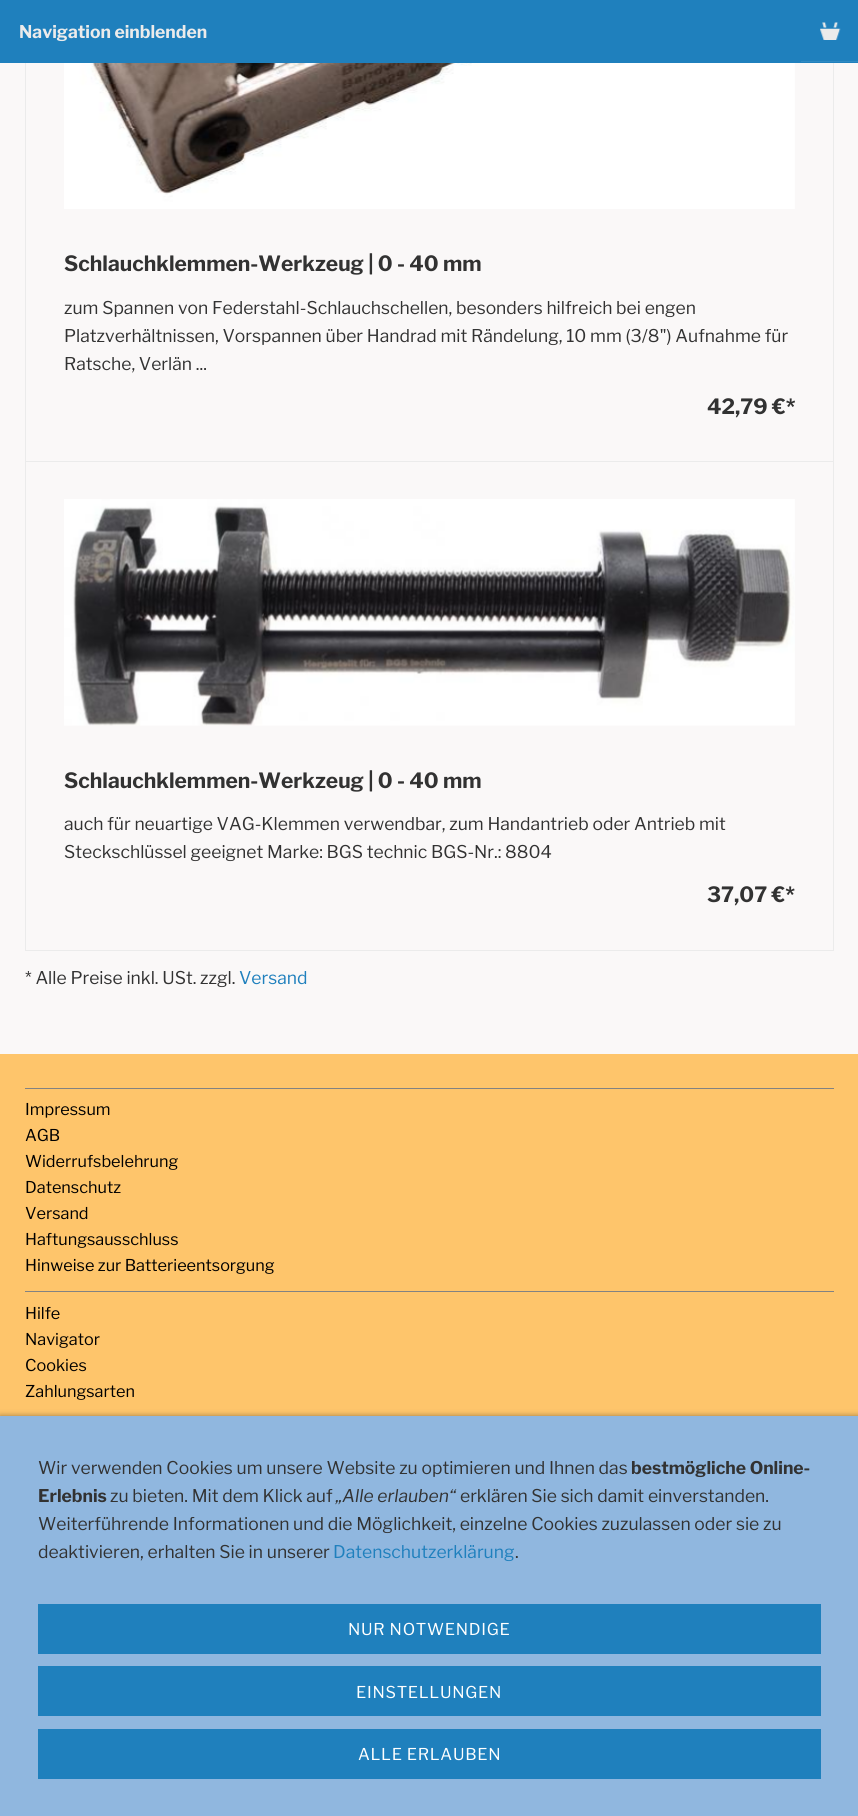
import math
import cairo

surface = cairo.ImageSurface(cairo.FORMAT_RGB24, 858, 1816)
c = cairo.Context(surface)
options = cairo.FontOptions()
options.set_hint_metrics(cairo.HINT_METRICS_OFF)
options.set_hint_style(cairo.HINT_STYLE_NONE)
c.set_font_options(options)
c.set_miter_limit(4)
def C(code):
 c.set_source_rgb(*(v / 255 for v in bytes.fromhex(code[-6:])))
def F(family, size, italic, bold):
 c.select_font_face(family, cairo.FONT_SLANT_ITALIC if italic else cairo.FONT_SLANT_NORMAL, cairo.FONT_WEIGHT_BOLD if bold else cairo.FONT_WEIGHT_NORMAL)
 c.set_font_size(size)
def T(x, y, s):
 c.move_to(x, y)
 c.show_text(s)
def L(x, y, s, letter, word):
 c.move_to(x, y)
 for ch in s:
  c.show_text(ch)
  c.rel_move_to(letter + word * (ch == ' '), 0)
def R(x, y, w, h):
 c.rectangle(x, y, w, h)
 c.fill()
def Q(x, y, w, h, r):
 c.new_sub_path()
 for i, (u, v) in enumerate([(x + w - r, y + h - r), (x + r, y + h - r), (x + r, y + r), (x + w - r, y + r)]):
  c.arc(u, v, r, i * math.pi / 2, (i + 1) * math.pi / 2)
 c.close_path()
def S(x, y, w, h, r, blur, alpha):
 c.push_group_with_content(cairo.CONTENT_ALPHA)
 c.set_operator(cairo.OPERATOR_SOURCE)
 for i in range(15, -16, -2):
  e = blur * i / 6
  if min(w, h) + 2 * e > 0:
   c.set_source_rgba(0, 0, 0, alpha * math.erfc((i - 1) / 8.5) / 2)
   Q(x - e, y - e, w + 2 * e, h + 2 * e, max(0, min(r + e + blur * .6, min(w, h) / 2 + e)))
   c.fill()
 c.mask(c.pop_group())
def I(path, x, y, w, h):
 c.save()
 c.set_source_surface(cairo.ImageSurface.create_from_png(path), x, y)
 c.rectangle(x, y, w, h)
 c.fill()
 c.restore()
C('faf8f8')
c.paint()
C('1f80bd')
R(0,0,858,63)
F('Libre Franklin',17.5,0,1)
C('ebebeb')
T(19,38,'Navigation einblenden')
I('1.png',820,22,21,18)
C('308ac2')
R(801,61,57,1)
C('ebebeb')
R(25,63,1,888)
R(833,63,1,888)
R(26,461,808,1)
I('2.png',64,63,731,146)
F('Libre Franklin',21,0,1)
C('323232')
T(64,271,'Schlauchklemmen-Werkzeug | 0 - 40 mm')
F('Libre Franklin',17.5,0,0)
T(64,314,'zum Spannen von Federstahl-Schlauchschellen, besonders hilfreich bei engen')
T(64,342,'Platzverhältnissen, Vorspannen über Handrad mit Rändelung, 10 mm (3/8") Aufnahme für')
T(64,370,'Ratsche, Verlän ...')
F('Libre Franklin',21,0,1)
T(707,414,'42,79 €*')
C('ebebeb')
R(26,950,808,1)
I('3.png',64,499,731,227)
C('323232')
T(64,788,'Schlauchklemmen-Werkzeug | 0 - 40 mm')
F('Libre Franklin',17.5,0,0)
T(64,830,'auch für neuartige VAG-Klemmen verwendbar, zum Handantrieb oder Antrieb mit')
T(64,858,'Steckschlüssel geeignet Marke: BGS technic BGS-Nr.: 8804')
F('Libre Franklin',21,0,1)
T(707,902,'37,07 €*')
F('Libre Franklin',17.5,0,0)
T(25,984,'* Alle Preise inkl. USt. zzgl.')
C('1f80bd')
T(239,984,'Versand')
C('fec56b')
R(0,1054,858,362)
C('828282')
R(25,1088,809,1)
F('Libre Franklin',16.25,0,0)
C('000000')
T(25,1115,'Impressum')
T(25,1141,'AGB')
T(25,1167,'Widerrufsbelehrung')
T(25,1193,'Datenschutz')
T(25,1219,'Versand')
T(25,1245,'Haftungsausschluss')
T(25,1271,'Hinweise zur Batterieentsorgung')
C('828282')
R(25,1291,809,1)
C('000000')
T(25,1319,'Hilfe')
T(25,1345,'Navigator')
T(25,1371,'Cookies')
T(25,1397,'Zahlungsarten')
C('000000')
S(0,1416,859,400,0,3,.4)
C('90b7df')
R(0,1416,858,400)
F('Libre Franklin',17.5,0,0)
C('323232')
T(38,1474,'Wir verwenden Cookies um unsere Website zu optimieren und Ihnen das')
F('Libre Franklin',17.5,0,1)
T(631,1474,'bestmögliche Online-')
T(38,1502,'Erlebnis')
F('Libre Franklin',17.5,0,0)
T(110,1502,'zu bieten. Mit dem Klick auf')
F('Libre Franklin',17.5,1,0)
T(336,1502,'„Alle erlauben“')
F('Libre Franklin',17.5,0,0)
T(460,1502,'erklären Sie sich damit einverstanden.')
T(38,1530,'Weiterführende Informationen und die Möglichkeit, einzelne Cookies zuzulassen oder sie zu')
T(38,1558,'deaktivieren, erhalten Sie in unserer')
C('1f80bd')
T(333,1558,'Datenschutzerklärung')
C('323232')
T(515,1558,'.')
C('1f80bd')
R(38,1604,783,50)
F('Libre Franklin',16.25,0,0)
C('ffffff')
L(348,1635,'NUR NOTWENDIGE',.75,0)
C('1f80bd')
R(38,1666,783,50)
C('ffffff')
L(356,1698,'EINSTELLUNGEN',.75,0)
C('1f80bd')
R(38,1729,783,50)
C('ffffff')
L(358,1760,'ALLE ERLAUBEN',.75,0)
surface.write_to_png('o.png')
